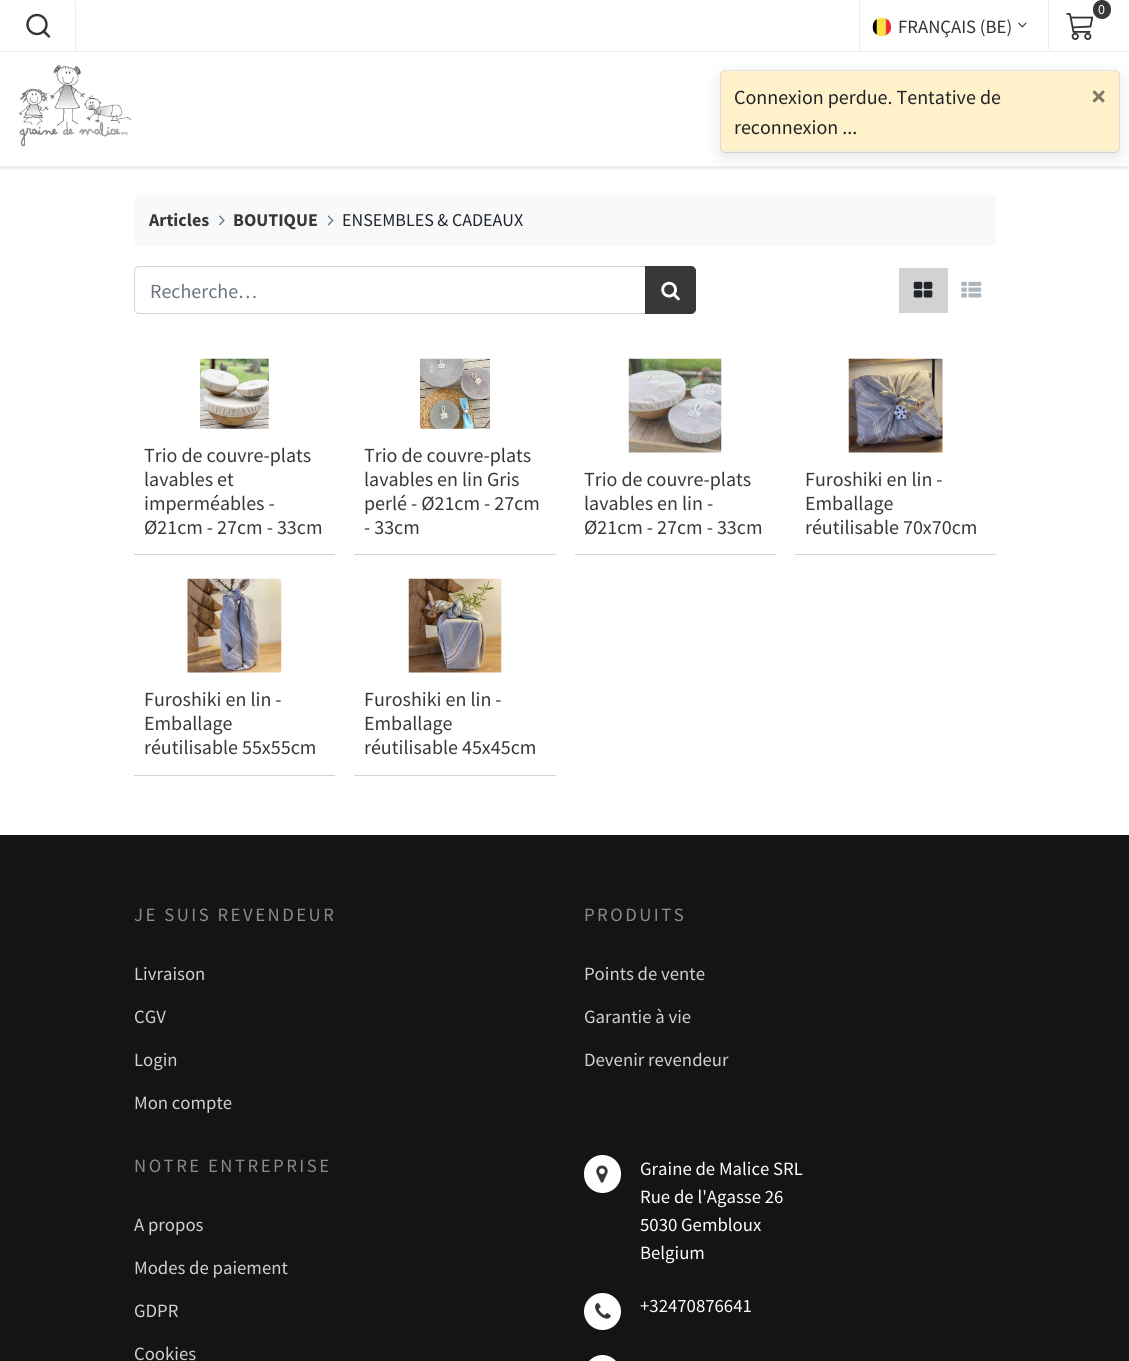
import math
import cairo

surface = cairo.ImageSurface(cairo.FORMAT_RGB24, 1129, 1361)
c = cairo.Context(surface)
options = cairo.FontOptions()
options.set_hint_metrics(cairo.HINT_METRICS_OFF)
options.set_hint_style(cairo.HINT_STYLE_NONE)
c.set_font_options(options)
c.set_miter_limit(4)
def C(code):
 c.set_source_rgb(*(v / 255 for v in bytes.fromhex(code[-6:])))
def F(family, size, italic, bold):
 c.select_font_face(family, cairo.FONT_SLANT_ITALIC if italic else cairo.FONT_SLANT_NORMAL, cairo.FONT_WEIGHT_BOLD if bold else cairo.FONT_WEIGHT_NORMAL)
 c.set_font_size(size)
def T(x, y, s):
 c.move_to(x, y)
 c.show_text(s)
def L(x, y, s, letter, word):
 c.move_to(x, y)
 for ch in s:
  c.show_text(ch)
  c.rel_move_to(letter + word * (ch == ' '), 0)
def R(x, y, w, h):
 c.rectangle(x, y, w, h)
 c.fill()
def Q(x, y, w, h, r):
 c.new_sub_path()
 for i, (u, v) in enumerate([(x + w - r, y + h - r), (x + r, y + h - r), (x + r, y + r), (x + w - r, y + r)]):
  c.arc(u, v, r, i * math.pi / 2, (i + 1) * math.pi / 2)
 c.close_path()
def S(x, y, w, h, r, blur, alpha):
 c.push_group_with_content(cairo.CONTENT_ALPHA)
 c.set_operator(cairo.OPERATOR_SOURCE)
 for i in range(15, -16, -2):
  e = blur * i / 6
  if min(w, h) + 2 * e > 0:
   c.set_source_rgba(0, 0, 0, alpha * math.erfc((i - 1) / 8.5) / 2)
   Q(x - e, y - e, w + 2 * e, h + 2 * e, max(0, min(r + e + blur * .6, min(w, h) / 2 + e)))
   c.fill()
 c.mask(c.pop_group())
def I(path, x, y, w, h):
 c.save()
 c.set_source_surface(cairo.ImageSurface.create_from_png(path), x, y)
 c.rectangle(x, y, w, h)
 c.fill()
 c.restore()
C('ffffff')
c.paint()
C('eeeeee')
R(0,51,1129,1)
R(75,1,1,50)
c.arc(37,24.5,9.5,0,2 * math.pi)
C('333333')
c.set_line_width(2.4)
c.stroke()
c.new_path()
c.move_to(49,36.5)
c.line_to(43.5,31)
c.set_line_cap(cairo.LINE_CAP_ROUND)
c.set_line_join(cairo.LINE_JOIN_ROUND)
c.stroke()
C('eeeeee')
R(1048,0,1,50)
I('1.png',1066,13,28,27)
C('38383b')
Q(1093,0,18,19,9)
c.fill()
F('Source Sans Pro',14,0,0)
C('ffffff')
T(1098,14,'0')
C('eeeeee')
R(859,0,1,51)
I('2.png',872,17,20,20)
F('Source Sans Pro',18.75,0,0)
C('333333')
T(898,33,'FRANÇAIS (BE)')
I('3.png',1018,22,9,6)
c.save()
c.rectangle(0,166,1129,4)
c.clip()
C('000000')
S(0,55,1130,114,0,2,.08)
c.restore()
I('4.png',18,65,114,82)
C('f8f9fa')
Q(134,195,862,51,5)
c.fill()
F('Source Sans Pro',18,0,1)
C('38383b')
T(149,226,'Articles')
I('5.png',218,215,7,11)
T(233,226,'BOUTIQUE')
I('6.png',327,215,7,11)
F('Source Sans Pro',18,0,0)
C('212529')
T(342,226,'ENSEMBLES & CADEAUX')
c.new_path()
c.move_to(139,266.5)
c.line_to(645.5,266.5)
c.line_to(645.5,313.5)
c.line_to(139,313.5)
c.curve_to(136.5,313.5,134.5,311.5,134.5,309)
c.line_to(134.5,271)
c.curve_to(134.5,268.5,136.5,266.5,139,266.5)
c.close_path()
C('ced4da')
c.set_line_width(1)
c.set_line_cap(cairo.LINE_CAP_BUTT)
c.set_line_join(cairo.LINE_JOIN_MITER)
c.stroke()
F('Source Sans Pro',20,0,0)
C('6c757d')
T(150,298,'Recherche…')
C('38383b')
c.new_path()
c.move_to(645.5,266.5)
c.line_to(691,266.5)
c.curve_to(693.5,266.5,695.5,268.5,695.5,271)
c.line_to(695.5,309)
c.curve_to(695.5,311.5,693.5,313.5,691,313.5)
c.line_to(645.5,313.5)
c.close_path()
c.fill_preserve()
c.stroke()
I('7.png',661,281,19,20)
C('d2d2d3')
R(899,268,49,45)
I('8.png',913,281,20,17)
I('9.png',961,281,21,17)
C('ced4da')
R(134,554,201,1)
I('10.png',200,358,69,71)
C('38383b')
T(144,462,'Trio de couvre-plats')
T(144,486,'lavables et')
T(144,510,'imperméables -')
T(144,534,'Ø21cm - 27cm - 33cm')
C('ced4da')
R(354,554,202,1)
I('11.png',420,358,70,71)
C('38383b')
T(364,462,'Trio de couvre-plats')
T(364,486,'lavables en lin Gris')
T(364,510,'perlé - Ø21cm - 27cm')
T(364,534,'- 33cm')
C('ced4da')
R(575,554,201,1)
I('12.png',628,358,94,95)
C('38383b')
T(584,486,'Trio de couvre-plats')
T(584,510,'lavables en lin -')
T(584,534,'Ø21cm - 27cm - 33cm')
C('ced4da')
R(795,554,201,1)
I('13.png',848,358,95,95)
C('38383b')
T(805,486,'Furoshiki en lin -')
T(805,510,'Emballage')
T(805,534,'réutilisable 70x70cm')
C('ced4da')
R(134,775,201,1)
I('14.png',187,578,95,95)
C('38383b')
T(144,706,'Furoshiki en lin -')
T(144,730,'Emballage')
T(144,754,'réutilisable 55x55cm')
C('ced4da')
R(354,775,202,1)
I('15.png',408,578,94,95)
C('38383b')
T(364,706,'Furoshiki en lin -')
T(364,730,'Emballage')
T(364,754,'réutilisable 45x45cm')
C('141414')
R(0,835,1129,526)
F('Source Sans Pro',18.75,0,0)
C('8a8a8a')
L(134,921,'JE SUIS REVENDEUR',2.5,0)
C('d0d0d0')
T(134,980,'Livraison')
T(134,1023,'CGV')
T(134,1066,'Login')
T(134,1109,'Mon compte')
C('8a8a8a')
L(584,921,'PRODUITS',2.5,0)
C('d0d0d0')
T(584,980,'Points de vente')
T(584,1023,'Garantie à vie')
T(584,1066,'Devenir revendeur')
C('8a8a8a')
L(134,1172,'NOTRE ENTREPRISE',2.5,0)
C('d0d0d0')
T(134,1231,'A propos')
T(134,1274,'Modes de paiement')
T(134,1317,'GDPR')
T(134,1360,'Cookies')
C('ffffff')
Q(584,1155,37,38,18.5)
c.fill()
I('16.png',596,1165,12,18)
T(640,1175,'Graine de Malice SRL')
T(640,1203,'Rue de l\'Agasse 26')
T(640,1231,'5030 Gembloux')
T(640,1259,'Belgium')
c.new_path()
c.arc(602.5,1311.5,18.5,0,2 * math.pi)
c.fill()
I('17.png',595,1303,16,16)
T(640,1312,'+32470876641')
c.new_path()
c.move_to(602.5,1355)
c.curve_to(612.5,1355,621,1363.5,621,1373.5)
c.line_to(621,1361)
c.line_to(584,1361)
c.line_to(584,1373.5)
c.curve_to(584,1363.5,592.5,1355,602.5,1355)
c.close_path()
c.fill()
C('000000')
S(720,75,400,83,5,7.5,.1)
C('ffc107')
Q(721,71,398,80,4)
c.fill()
Q(720.5,70.5,399,82,4.5)
c.set_source_rgba(0,0,0,0.1)
c.stroke()
c.set_source_rgba(1,1,1,0.78)
Q(721,71,398,80,4)
c.fill()
F('Source Sans Pro',20,0,0)
C('212529')
T(734,104,'Connexion perdue. Tentative de')
T(734,134,'reconnexion ...')
F('Source Sans Pro',29,0,1)
C('807964')
T(1091,106,'×')
surface.write_to_png('o.png')
